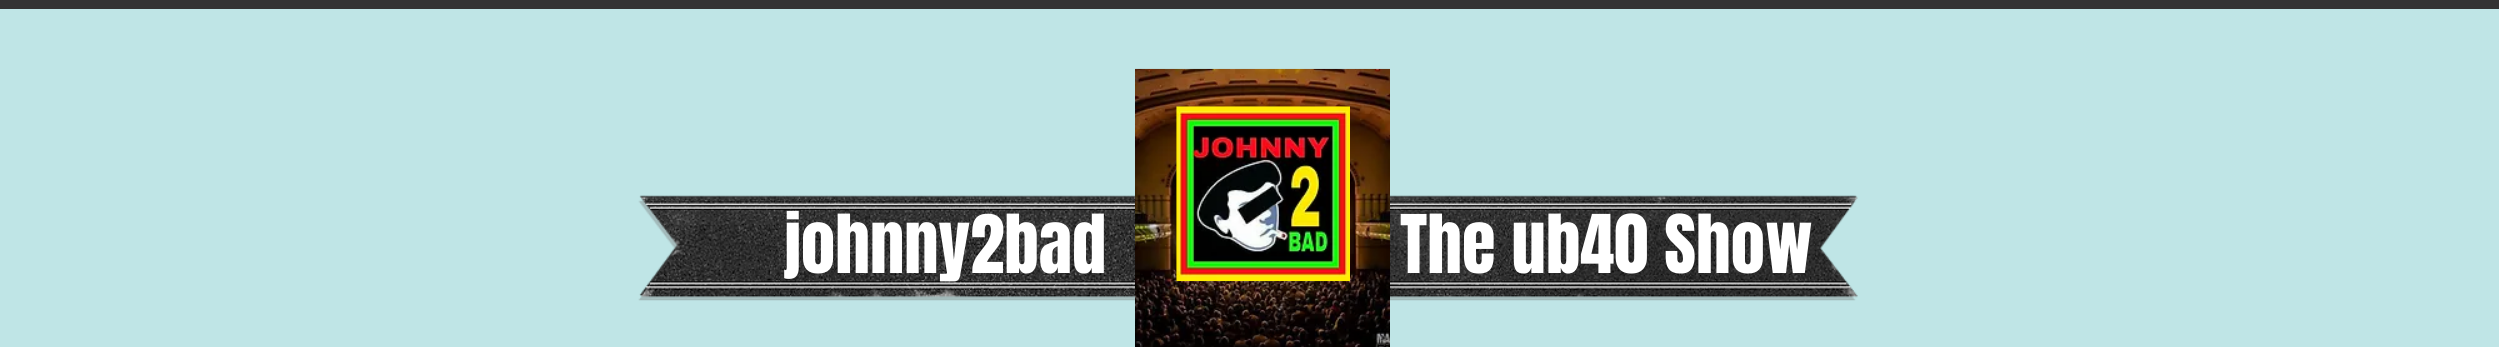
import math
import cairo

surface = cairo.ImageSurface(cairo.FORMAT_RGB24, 2499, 347)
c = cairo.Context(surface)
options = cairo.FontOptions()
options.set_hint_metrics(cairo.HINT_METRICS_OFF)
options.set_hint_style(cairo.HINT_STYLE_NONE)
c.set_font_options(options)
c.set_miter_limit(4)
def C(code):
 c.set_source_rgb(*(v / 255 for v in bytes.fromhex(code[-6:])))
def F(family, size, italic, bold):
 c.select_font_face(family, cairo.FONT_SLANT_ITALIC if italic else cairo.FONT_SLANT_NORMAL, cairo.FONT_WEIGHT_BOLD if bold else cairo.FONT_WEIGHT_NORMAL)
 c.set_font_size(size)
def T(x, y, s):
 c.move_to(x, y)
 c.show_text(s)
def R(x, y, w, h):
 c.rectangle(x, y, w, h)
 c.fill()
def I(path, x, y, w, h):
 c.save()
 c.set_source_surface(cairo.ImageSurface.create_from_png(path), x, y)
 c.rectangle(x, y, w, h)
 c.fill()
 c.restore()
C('bfe5e6')
c.paint()
C('333333')
R(0,0,2499,9)
I('3.png',638,195,1220,106)
I('1.png',1135,68,255,279)
I('2.png',1176,106,174,176)
F('Anton',68.75,0,0)
C('ffffff')
T(783,273,'johnny2bad')
T(1400,273,'The ub40 Show')
surface.write_to_png('o.png')
